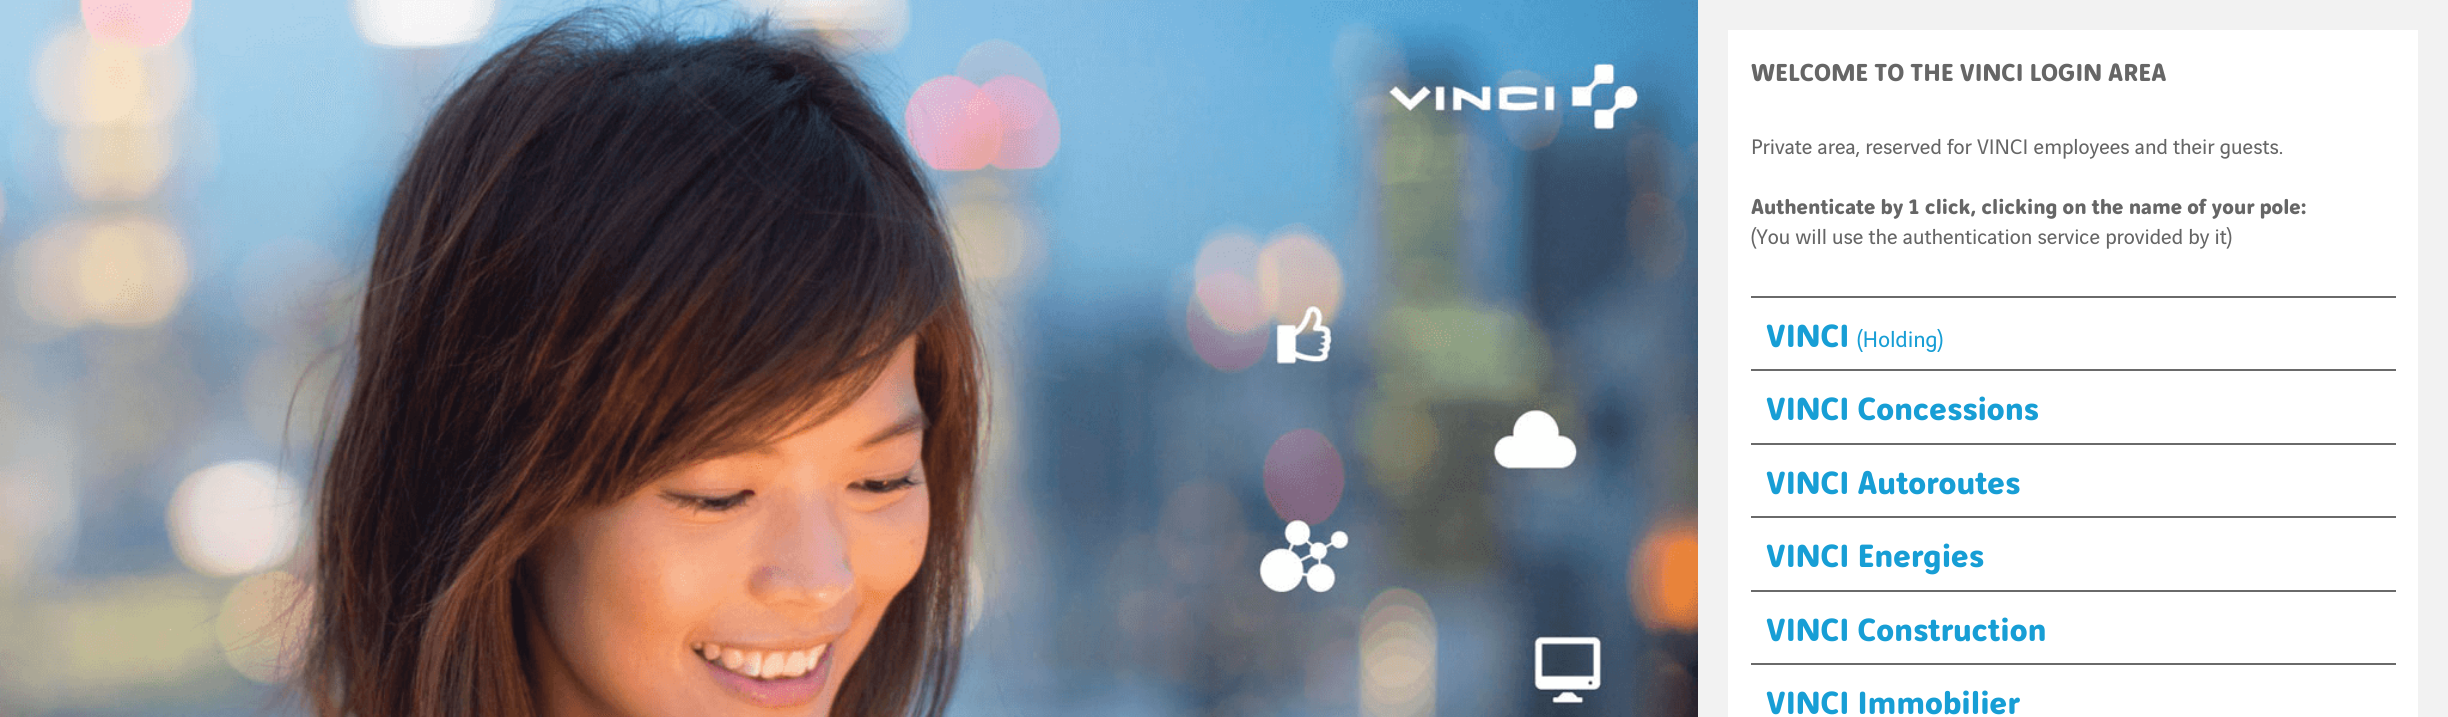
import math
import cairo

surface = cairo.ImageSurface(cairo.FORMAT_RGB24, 2448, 717)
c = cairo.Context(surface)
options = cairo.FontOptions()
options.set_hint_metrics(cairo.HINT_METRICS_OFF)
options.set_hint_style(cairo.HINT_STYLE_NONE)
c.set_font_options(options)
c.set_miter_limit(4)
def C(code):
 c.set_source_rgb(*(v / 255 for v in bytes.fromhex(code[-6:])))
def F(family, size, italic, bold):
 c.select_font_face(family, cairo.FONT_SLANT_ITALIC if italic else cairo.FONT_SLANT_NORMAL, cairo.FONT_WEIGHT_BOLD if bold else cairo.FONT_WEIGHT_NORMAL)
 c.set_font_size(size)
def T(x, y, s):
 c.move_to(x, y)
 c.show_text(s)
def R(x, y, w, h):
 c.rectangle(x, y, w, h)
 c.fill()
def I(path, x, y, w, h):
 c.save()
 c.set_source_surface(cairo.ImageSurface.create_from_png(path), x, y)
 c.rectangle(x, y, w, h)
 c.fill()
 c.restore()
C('ffffff')
c.paint()
I('1.png',0,0,1698,717)
C('f2f2f2')
R(1698,0,750,717)
C('ffffff')
R(1728,30,690,687)
F('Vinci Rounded',26.3,0,1)
C('666666')
T(1751,81,'WELCOME TO THE VINCI LOGIN AREA')
F('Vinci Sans',22.5,0,0)
T(1751,154,'Private area, reserved for VINCI employees and their guests.')
F('Vinci Rounded',22.5,0,1)
T(1751,214,'Authenticate by 1 click, clicking on the name of your pole:')
F('Vinci Sans',22.5,0,0)
T(1751,244,'(You will use the authentication service provided by it)')
C('6a6a6a')
R(1751,296,645,2)
F('Vinci Rounded',34.5,0,1)
C('179ed5')
T(1766,347,'VINCI')
F('Vinci Sans',24,0,0)
T(1857,347,'(Holding)')
C('6a6a6a')
R(1751,369,645,2)
F('Vinci Rounded',34.5,0,1)
C('179ed5')
T(1766,420,'VINCI Concessions')
C('6a6a6a')
R(1751,443,645,2)
C('179ed5')
T(1766,494,'VINCI Autoroutes')
C('6a6a6a')
R(1751,516,645,2)
C('179ed5')
T(1766,567,'VINCI Energies')
C('6a6a6a')
R(1751,590,645,2)
C('179ed5')
T(1766,641,'VINCI Construction')
C('6a6a6a')
R(1751,663,645,2)
C('179ed5')
T(1766,714,'VINCI Immobilier')
surface.write_to_png('o.png')
